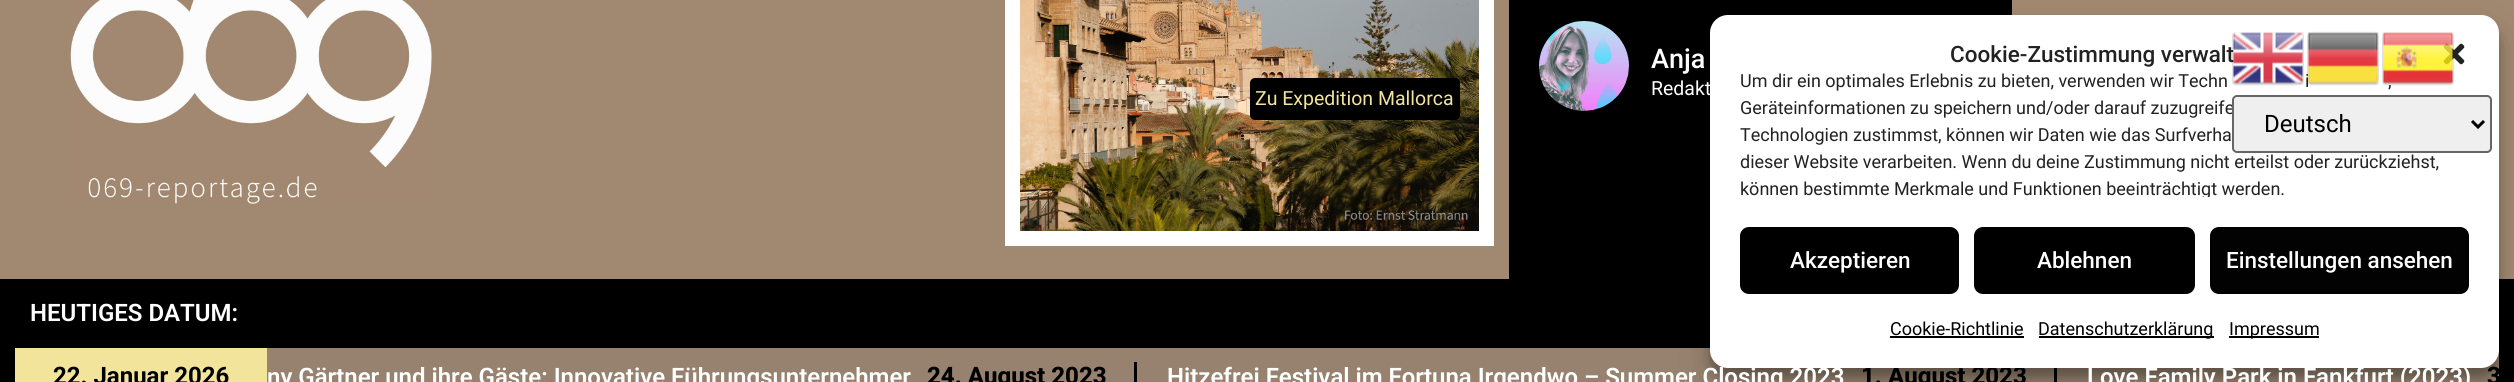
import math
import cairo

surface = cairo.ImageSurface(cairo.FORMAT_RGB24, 2514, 382)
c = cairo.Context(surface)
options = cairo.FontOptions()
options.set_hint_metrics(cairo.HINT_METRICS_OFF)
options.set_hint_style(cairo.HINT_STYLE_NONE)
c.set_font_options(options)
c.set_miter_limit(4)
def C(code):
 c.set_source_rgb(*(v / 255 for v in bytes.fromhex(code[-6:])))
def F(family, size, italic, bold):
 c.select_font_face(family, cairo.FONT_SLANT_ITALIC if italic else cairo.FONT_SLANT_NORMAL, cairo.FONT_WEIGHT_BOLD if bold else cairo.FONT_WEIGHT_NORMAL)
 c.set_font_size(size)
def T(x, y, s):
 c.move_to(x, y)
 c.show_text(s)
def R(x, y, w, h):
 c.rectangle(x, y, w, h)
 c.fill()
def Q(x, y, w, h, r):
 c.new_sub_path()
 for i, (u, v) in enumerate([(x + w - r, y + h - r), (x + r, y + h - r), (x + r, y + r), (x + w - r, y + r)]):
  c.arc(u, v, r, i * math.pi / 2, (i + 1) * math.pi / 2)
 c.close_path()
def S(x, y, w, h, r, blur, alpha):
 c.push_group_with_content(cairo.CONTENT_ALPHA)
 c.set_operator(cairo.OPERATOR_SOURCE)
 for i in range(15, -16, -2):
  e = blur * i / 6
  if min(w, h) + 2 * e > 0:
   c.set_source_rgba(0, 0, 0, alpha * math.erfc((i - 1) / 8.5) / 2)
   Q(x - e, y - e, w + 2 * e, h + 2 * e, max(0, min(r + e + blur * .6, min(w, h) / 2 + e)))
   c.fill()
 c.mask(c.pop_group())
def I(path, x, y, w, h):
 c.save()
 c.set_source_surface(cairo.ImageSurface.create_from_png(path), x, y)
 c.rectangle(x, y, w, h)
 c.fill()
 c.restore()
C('a18870')
c.paint()
C('000000')
R(1509,0,503,279)
R(0,279,2514,103)
C('96826e')
R(267,348,1787,34)
R(2057,350,442,32)
C('000000')
S(1710,24,789,353,18,4.5,.23)
S(1710,30,789,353,18,15,.19)
F('Roboto ExtraBold',24,0,0)
C('000000')
T(1861,384,'1. August 2023')
c.save()
c.rectangle(267,348,2232,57)
c.clip()
T(2487,384,'3')
c.restore()
C('ffffff')
Q(1710,15,789,353,18)
c.fill()
F('Roboto Medium',22.5,0,0)
C('222222')
T(1950,62,'Cookie-Zustimmung verwalt')
I('1.png',2443,43,22,22)
F('Roboto',18,0,0)
T(1740,87,'Um dir ein optimales Erlebnis zu bieten, verwenden wir Techn')
T(2305,87,'i')
T(2388,87,',')
T(1740,114,'Geräteinformationen zu speichern und/oder darauf zuzugreife')
T(1740,141,'Technologien zustimmst, können wir Daten wie das Surfverha')
T(1740,168,'dieser Website verarbeiten. Wenn du deine Zustimmung nicht erteilst oder zurückziehst,')
c.save()
c.rectangle(1740,68,729,129)
c.clip()
T(1740,195,'können bestimmte Merkmale und Funktionen beeinträchtigt werden.')
c.restore()
C('000000')
Q(1741,228,217,65,8)
c.fill_preserve()
c.stroke()
F('Roboto Medium',22.5,0,0)
C('ffffff')
T(1790,268,'Akzeptieren')
C('000000')
Q(1975,228,219,65,8)
c.fill_preserve()
c.stroke()
C('ffffff')
T(2037,268,'Ablehnen')
C('020202')
Q(2211,228,257,65,8)
c.fill_preserve()
C('000000')
c.stroke()
C('ffffff')
T(2226,268,'Einstellungen ansehen')
F('Roboto',18,0,0)
C('000000')
T(1890,335,'Cookie-Richtlinie')
R(1890,336,134,2)
R(2039,336,175,2)
T(2038,335,'Datenschutzerklärung')
R(2229,336,90,2)
T(2229,335,'Impressum')
I('2.png',70,0,362,204)
I('3.png',1539,21,90,90)
F('Roboto Medium',27,0,0)
C('ffffff')
T(1651,68,'Anja')
F('Roboto',19.5,0,0)
T(1651,95,'Redakt')
c.rectangle(1012.5,-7.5,474,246)
c.set_line_width(15)
c.stroke()
I('4.png',1020,0,459,231)
C('000000')
Q(1250,78,210,42,5)
c.fill()
C('f2e49b')
T(1255,105,'Zu Expedition Mallorca')
F('Roboto SemiBold',24,0,0)
C('ffffff')
T(30,321,'HEUTIGES DATUM:')
C('f2e49b')
R(15,348,252,34)
F('Roboto',24,0,1)
C('000000')
T(53,384,'22. Januar 2026')
F('Roboto SemiBold',24,0,0)
C('ffffff')
T(267,385,'ny Gärtner und ihre Gäste: Innovative Führungsunternehmer')
F('Roboto ExtraBold',24,0,0)
C('000000')
T(927,384,'24. August 2023')
R(1134,362,3,20)
F('Roboto SemiBold',24,0,0)
C('ffffff')
T(1167,385,'Hitzefrei Festival im Fortuna Irgendwo – Summer Closing 2023')
T(2087,385,'Love Family Park in Fankfurt (2023)')
I('5.png',2232,32,72,54)
I('6.png',2307,31,72,55)
I('7.png',2382,32,72,54)
C('efefef')
Q(2233,96,258,56,4)
c.fill_preserve()
C('666666')
c.set_line_width(2)
c.stroke()
c.new_path()
c.move_to(2472,121)
c.line_to(2478,127)
c.line_to(2484,121)
C('000000')
c.set_line_width(3)
c.stroke()
F('Roboto',24,0,0)
T(2264,132,'Deutsch')
surface.write_to_png('o.png')
